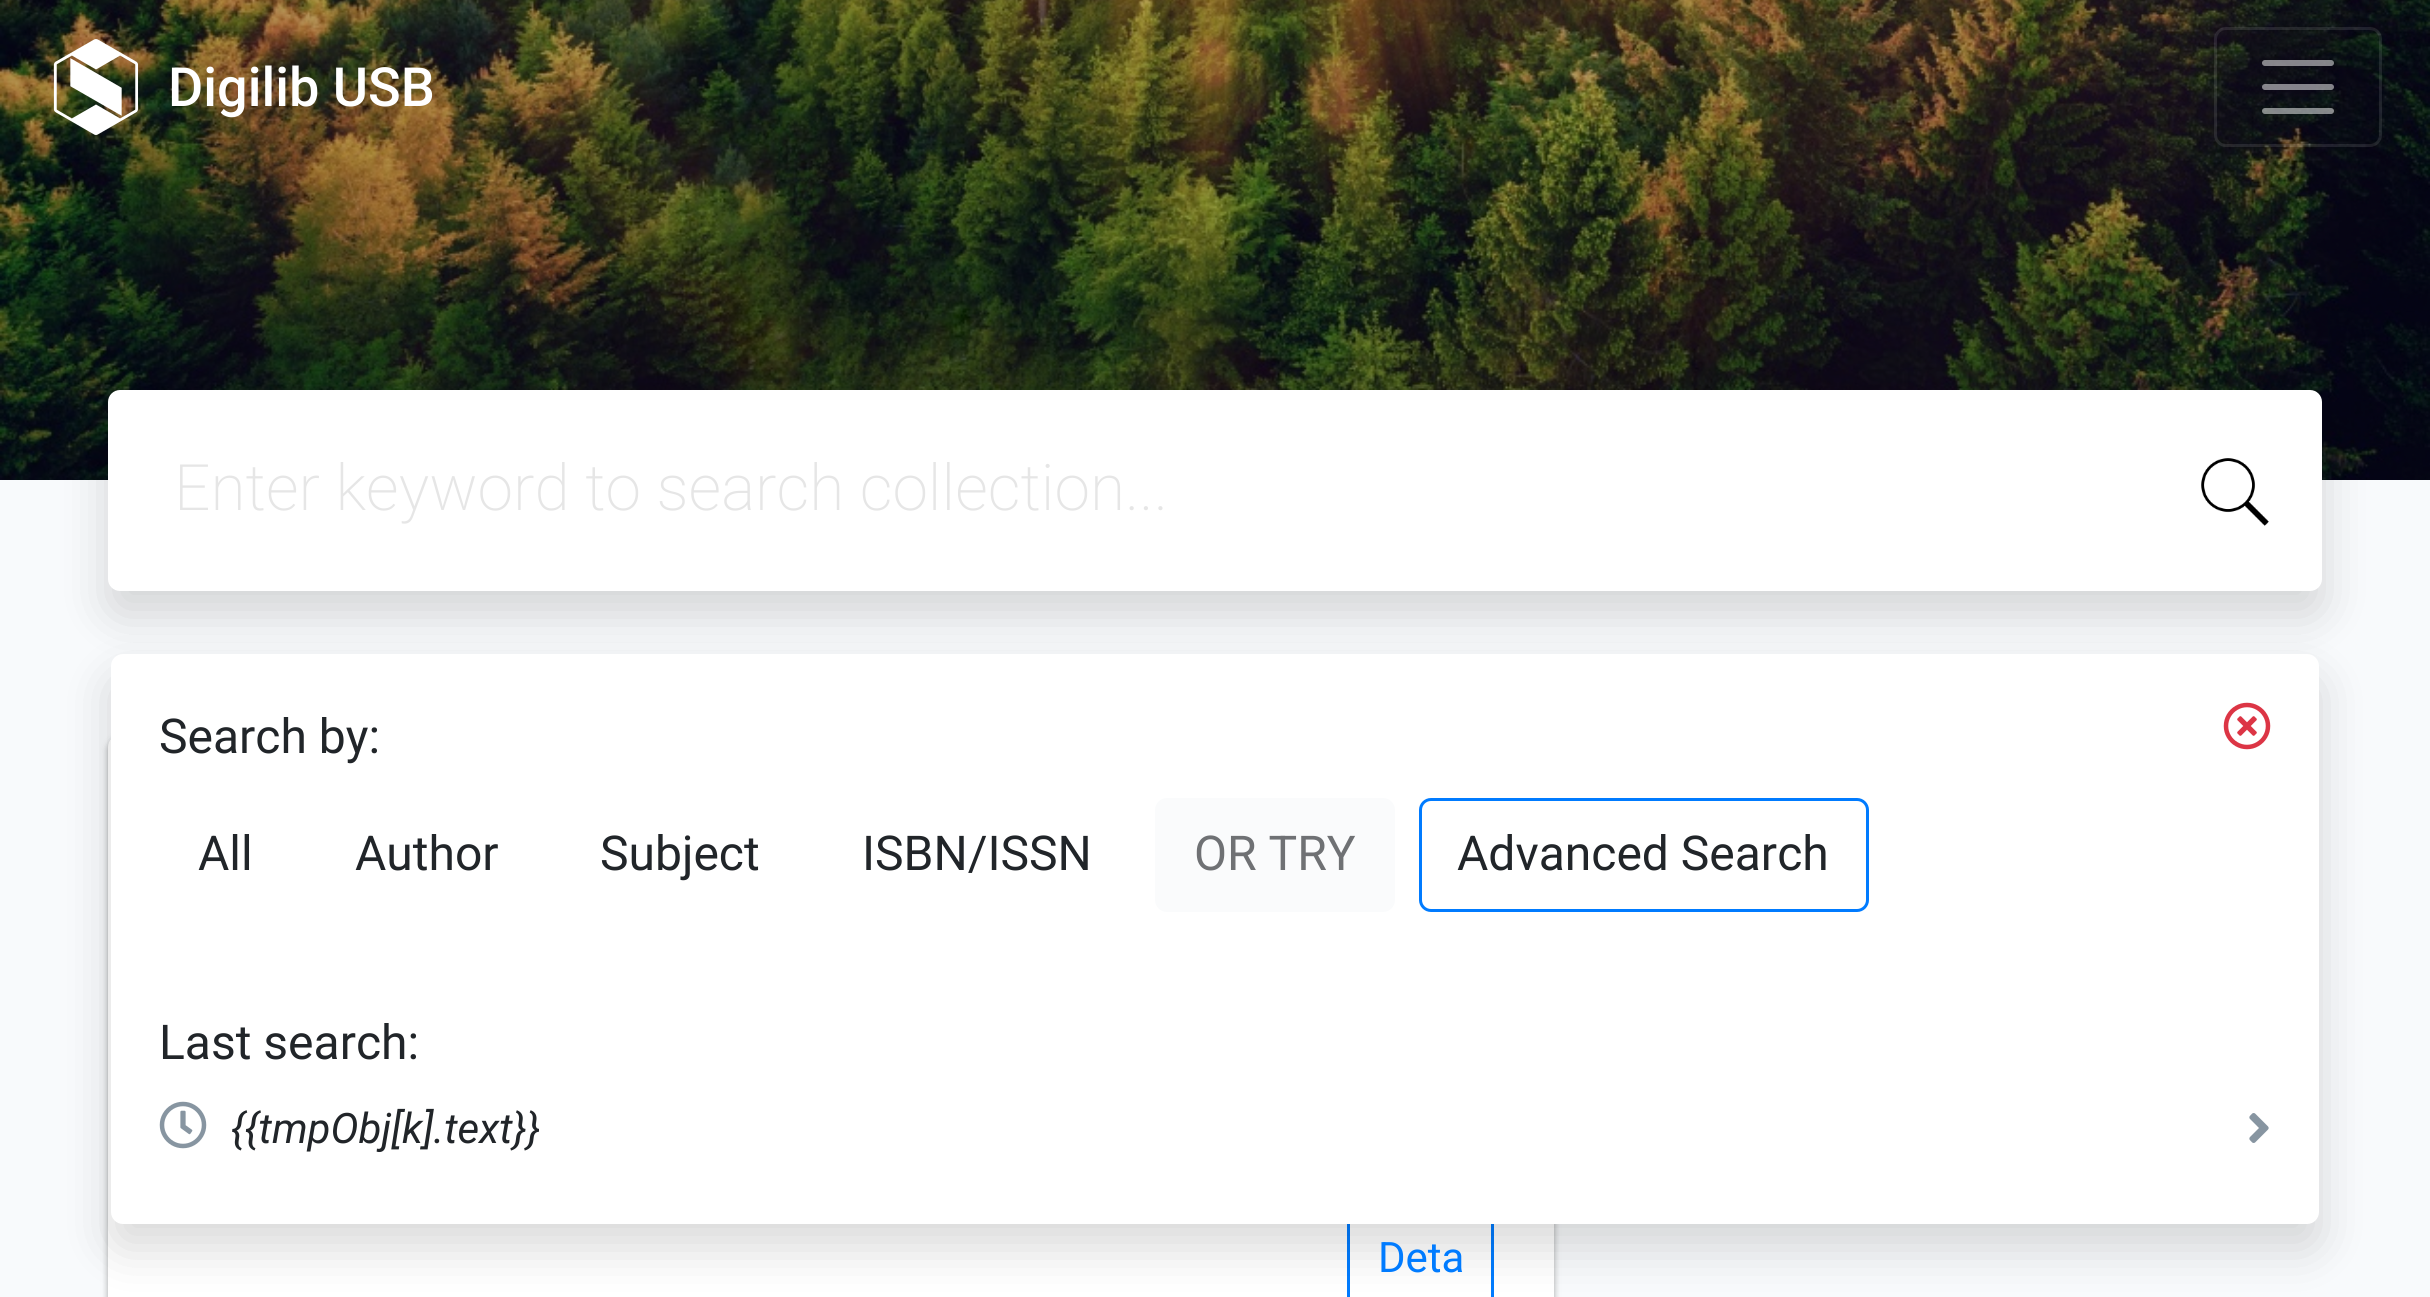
import math
import cairo

surface = cairo.ImageSurface(cairo.FORMAT_RGB24, 2430, 1297)
c = cairo.Context(surface)
options = cairo.FontOptions()
options.set_hint_metrics(cairo.HINT_METRICS_OFF)
options.set_hint_style(cairo.HINT_STYLE_NONE)
c.set_font_options(options)
c.set_miter_limit(4)
def C(code):
 c.set_source_rgb(*(v / 255 for v in bytes.fromhex(code[-6:])))
def F(family, size, italic, bold):
 c.select_font_face(family, cairo.FONT_SLANT_ITALIC if italic else cairo.FONT_SLANT_NORMAL, cairo.FONT_WEIGHT_BOLD if bold else cairo.FONT_WEIGHT_NORMAL)
 c.set_font_size(size)
def T(x, y, s):
 c.move_to(x, y)
 c.show_text(s)
def Q(x, y, w, h, r):
 c.new_sub_path()
 for i, (u, v) in enumerate([(x + w - r, y + h - r), (x + r, y + h - r), (x + r, y + r), (x + w - r, y + r)]):
  c.arc(u, v, r, i * math.pi / 2, (i + 1) * math.pi / 2)
 c.close_path()
def S(x, y, w, h, r, blur, alpha):
 c.push_group_with_content(cairo.CONTENT_ALPHA)
 c.set_operator(cairo.OPERATOR_SOURCE)
 for i in range(15, -16, -2):
  e = blur * i / 6
  if min(w, h) + 2 * e > 0:
   c.set_source_rgba(0, 0, 0, alpha * math.erfc((i - 1) / 8.5) / 2)
   Q(x - e, y - e, w + 2 * e, h + 2 * e, max(0, min(r + e + blur * .6, min(w, h) / 2 + e)))
   c.fill()
 c.mask(c.pop_group())
def I(path, x, y, w, h):
 c.save()
 c.set_source_surface(cairo.ImageSurface.create_from_png(path), x, y)
 c.rectangle(x, y, w, h)
 c.fill()
 c.restore()
C('f8fafc')
c.paint()
I('1.png',0,0,2430,480)
I('2.png',53,39,86,96)
F('Roboto Medium',54,0,0)
C('ffffff')
T(168,106,'Digilib USB')
Q(2215.5,28.5,165,117,10.5)
c.set_source_rgba(1,1,1,0.1)
c.set_line_width(3)
c.stroke()
c.new_path()
c.move_to(2265,63)
c.line_to(2331,63)
c.move_to(2265,87)
c.line_to(2331,87)
c.move_to(2265,111)
c.line_to(2331,111)
c.set_source_rgba(1,1,1,0.5)
c.set_line_width(6)
c.set_line_cap(cairo.LINE_CAP_ROUND)
c.stroke()
C('000000')
S(108,414,2214,201,12,24,.15)
C('ffffff')
Q(108,390,2214,201,12)
c.fill()
I('3.png',2201,458,68,68)
F('Roboto ExtraLight',64,0,0)
C('e6e6e6')
T(174,510,'Enter keyword to search collection...')
C('000000')
S(108,738,1446,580,12,3,.24)
S(108,738,1446,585,12,4.5,.12)
C('ffffff')
Q(108,735,1446,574,12)
c.fill()
c.rectangle(1348.5,1150.5,144,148)
C('007bff')
c.set_line_width(3)
c.set_line_cap(cairo.LINE_CAP_BUTT)
c.stroke()
C('000000')
S(111,678,2208,570,12,24,.15)
C('ffffff')
Q(111,654,2208,570,12)
c.fill()
F('Roboto',48,0,0)
C('212529')
T(159,753,'Search by:')
I('4.png',2223,702,48,48)
T(198,870,'All')
T(355,870,'Author')
T(600,870,'Subject')
T(862,870,'ISBN/ISSN')
C('fafbfc')
Q(1155,798,240,114,12)
c.fill()
C('6f7174')
T(1194,870,'OR TRY')
Q(1420.5,799.5,447,111,10.5)
C('007bff')
c.stroke()
C('212529')
T(1457,870,'Advanced Search')
T(159,1059,'Last search:')
I('5.png',159,1101,48,48)
F('Roboto',42,1,0)
T(231,1143,'{{tmpObj[k].text}}')
I('6.png',2249,1113,20,30)
F('Roboto',42,0,0)
C('007bff')
T(1378,1272,'Deta')
surface.write_to_png('o.png')
